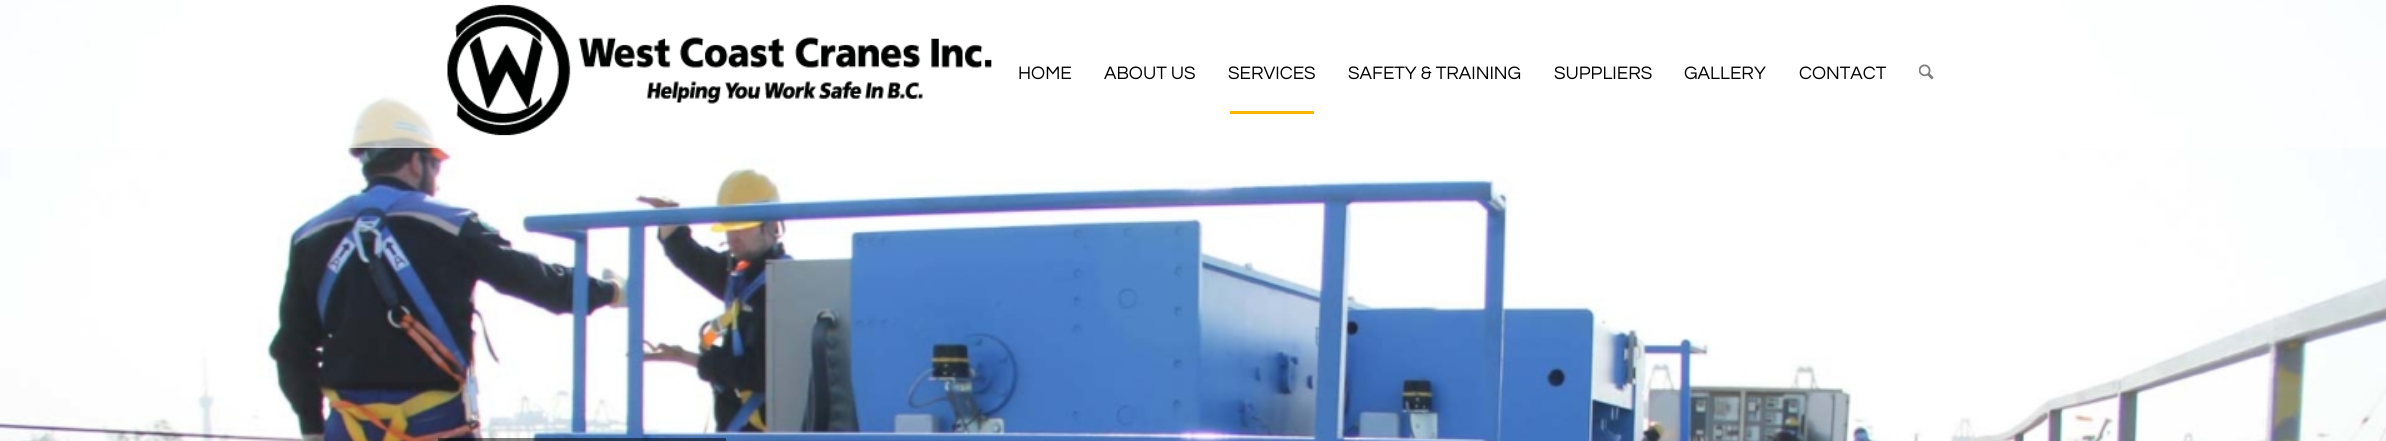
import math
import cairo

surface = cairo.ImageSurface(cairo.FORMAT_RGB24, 2386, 441)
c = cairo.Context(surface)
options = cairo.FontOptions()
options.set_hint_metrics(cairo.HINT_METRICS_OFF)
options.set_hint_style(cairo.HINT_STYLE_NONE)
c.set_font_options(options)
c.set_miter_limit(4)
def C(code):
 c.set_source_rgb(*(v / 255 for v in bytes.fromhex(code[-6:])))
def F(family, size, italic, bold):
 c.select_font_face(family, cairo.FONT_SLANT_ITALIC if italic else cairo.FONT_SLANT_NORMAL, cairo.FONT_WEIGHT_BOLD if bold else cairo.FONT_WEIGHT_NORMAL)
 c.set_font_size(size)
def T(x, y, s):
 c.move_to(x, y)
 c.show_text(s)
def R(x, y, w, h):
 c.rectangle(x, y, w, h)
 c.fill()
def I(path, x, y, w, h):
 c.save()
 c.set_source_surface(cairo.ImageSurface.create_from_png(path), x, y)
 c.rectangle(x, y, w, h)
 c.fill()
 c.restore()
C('ffffff')
c.paint()
I('1.png',0,0,2386,441)
c.set_source_rgba(0,0,0,0.5)
R(438,438,288,3)
c.set_source_rgba(1,1,1,0.57)
R(0,0,2386,148)
c.set_source_rgba(1,1,1,0.1)
R(350,100,88,48)
c.set_source_rgba(1,1,1,0.25)
R(349,146,90,1)
I('2.png',447,4,545,132)
F('Questrial',18.75,0,0)
C('000000')
T(1018,79,'HOME')
T(1104,79,'ABOUT US')
T(1228,79,'SERVICES')
C('f8b600')
R(1230,111,84,3)
C('000000')
T(1348,79,'SAFETY & TRAINING')
T(1554,79,'SUPPLIERS')
T(1684,79,'GALLERY')
T(1799,79,'CONTACT')
I('3.png',1919,64,15,16)
surface.write_to_png('o.png')
